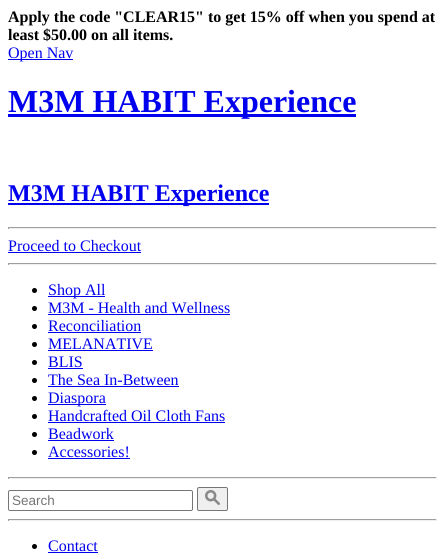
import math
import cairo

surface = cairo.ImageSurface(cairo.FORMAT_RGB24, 445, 559)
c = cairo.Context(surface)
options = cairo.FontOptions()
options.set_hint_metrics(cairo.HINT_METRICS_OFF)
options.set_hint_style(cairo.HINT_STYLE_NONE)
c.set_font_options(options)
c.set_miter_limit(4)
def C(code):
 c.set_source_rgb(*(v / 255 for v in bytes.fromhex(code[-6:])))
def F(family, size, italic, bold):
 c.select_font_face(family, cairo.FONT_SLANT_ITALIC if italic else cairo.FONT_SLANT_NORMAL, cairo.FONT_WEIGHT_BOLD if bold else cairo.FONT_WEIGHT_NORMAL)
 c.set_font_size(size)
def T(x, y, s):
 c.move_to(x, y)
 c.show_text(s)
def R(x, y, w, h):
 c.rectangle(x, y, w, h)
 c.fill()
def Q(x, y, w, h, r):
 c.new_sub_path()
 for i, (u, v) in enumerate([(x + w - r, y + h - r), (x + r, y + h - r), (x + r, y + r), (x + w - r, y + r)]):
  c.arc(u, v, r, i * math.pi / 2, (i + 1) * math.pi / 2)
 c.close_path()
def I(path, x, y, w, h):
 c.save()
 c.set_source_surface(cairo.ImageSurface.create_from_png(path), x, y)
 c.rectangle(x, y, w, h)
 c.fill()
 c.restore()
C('ffffff')
c.paint()
F('Liberation Serif',16,0,1)
C('000000')
T(8,22,'Apply the code "CLEAR15" to get 15% off when you spend at')
T(8,40,'least $50.00 on all items.')
C('0000ee')
R(8,59,65,1)
F('Liberation Serif',16,0,0)
T(8,58,'Open Nav')
R(8,114,348,3)
F('Liberation Serif',32,0,1)
T(8,112,'M3M HABIT Experience')
R(8,203,261,2)
F('Liberation Serif',24,0,1)
T(8,201,'M3M HABIT Experience')
C('9f9f9f')
R(8,227,429,1)
C('eeeeee')
R(436,227,1,2)
R(8,228,429,1)
C('9f9f9f')
R(8,227,1,2)
F('Liberation Serif',16,0,0)
C('0000ee')
T(8,251,'Proceed to Checkout')
R(8,252,133,1)
C('9f9f9f')
R(8,263,429,1)
C('eeeeee')
R(436,263,1,2)
R(8,264,429,1)
C('9f9f9f')
R(8,263,1,2)
C('000000')
c.new_path()
c.arc(34.5,290.5,2.5,0,2 * math.pi)
c.fill()
C('0000ee')
R(48,296,57,1)
T(48,295,'Shop All')
C('000000')
c.new_path()
c.arc(34.5,308.5,2.5,0,2 * math.pi)
c.fill()
C('0000ee')
T(48,313,'M3M - Health and Wellness')
R(48,314,182,1)
C('000000')
c.new_path()
c.arc(34.5,326.5,2.5,0,2 * math.pi)
c.fill()
C('0000ee')
T(48,331,'Reconciliation')
R(48,332,93,1)
C('000000')
c.new_path()
c.arc(34.5,344.5,2.5,0,2 * math.pi)
c.fill()
C('0000ee')
T(48,349,'MELANATIVE')
R(48,350,105,1)
C('000000')
c.new_path()
c.arc(34.5,362.5,2.5,0,2 * math.pi)
c.fill()
C('0000ee')
T(48,367,'BLIS')
R(48,368,35,1)
C('000000')
c.new_path()
c.arc(34.5,380.5,2.5,0,2 * math.pi)
c.fill()
C('0000ee')
T(48,385,'The Sea In-Between')
R(48,386,131,1)
C('000000')
c.new_path()
c.arc(34.5,398.5,2.5,0,2 * math.pi)
c.fill()
C('0000ee')
R(48,404,58,1)
T(48,403,'Diaspora')
C('000000')
c.new_path()
c.arc(34.5,416.5,2.5,0,2 * math.pi)
c.fill()
C('0000ee')
T(48,421,'Handcrafted Oil Cloth Fans')
R(48,422,177,1)
C('000000')
c.new_path()
c.arc(34.5,434.5,2.5,0,2 * math.pi)
c.fill()
C('0000ee')
T(48,439,'Beadwork')
R(48,440,66,1)
C('000000')
c.new_path()
c.arc(34.5,452.5,2.5,0,2 * math.pi)
c.fill()
C('0000ee')
T(48,457,'Accessories!')
R(48,458,82,1)
C('9f9f9f')
R(8,477,429,1)
C('eeeeee')
R(436,477,1,2)
R(8,478,429,1)
C('9f9f9f')
R(8,477,1,2)
Q(8.5,490.5,184,20,1.5)
C('767676')
c.set_line_width(1)
c.stroke()
F('Liberation Sans',13.5,0,0)
C('757575')
T(12,505,'Search')
C('efefef')
Q(197.5,487.5,30,23,1.5)
c.fill_preserve()
C('767676')
c.stroke()
I('1.png',205,490,15,15)
C('9f9f9f')
R(8,519,429,1)
C('eeeeee')
R(436,519,1,2)
R(8,520,429,1)
C('9f9f9f')
R(8,519,1,2)
C('000000')
c.arc(34.5,546.5,2.5,0,2 * math.pi)
c.fill()
F('Liberation Serif',16,0,0)
C('0000ee')
T(48,551,'Contact')
R(48,552,50,1)
surface.write_to_png('o.png')
